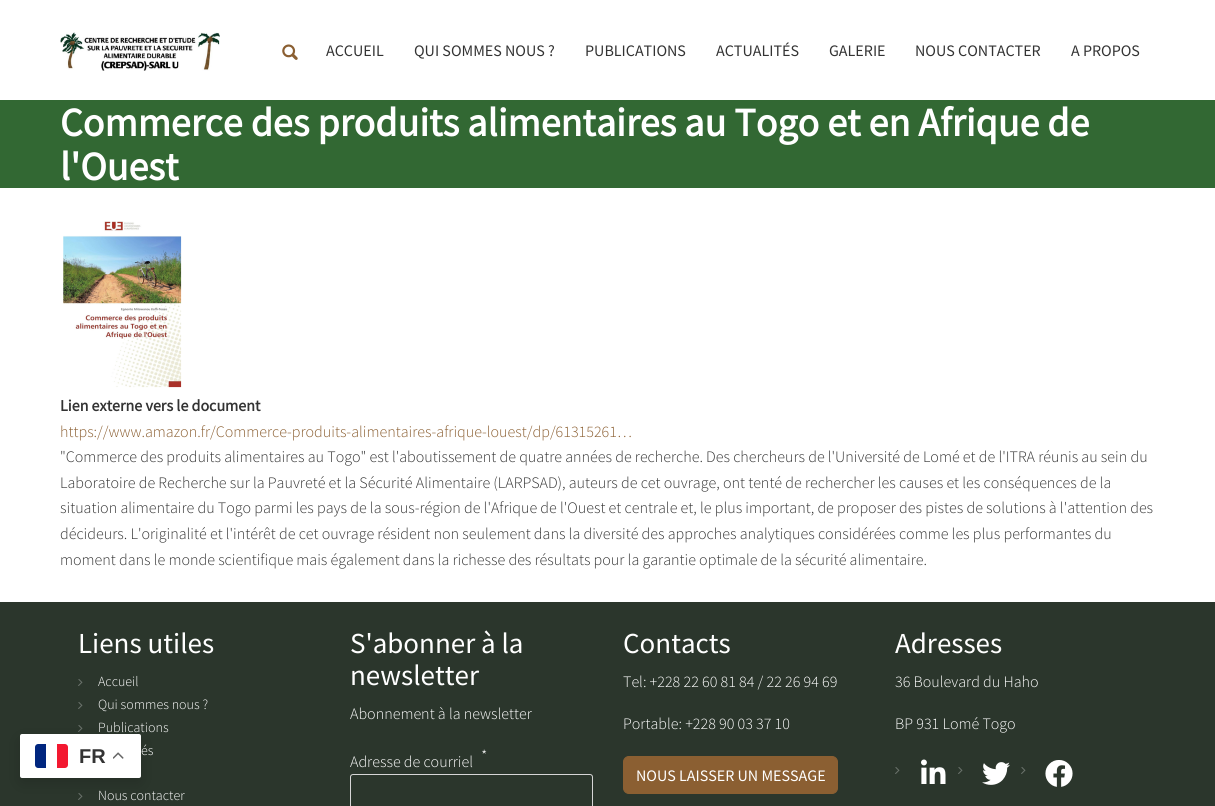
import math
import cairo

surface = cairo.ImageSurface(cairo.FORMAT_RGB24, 1215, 806)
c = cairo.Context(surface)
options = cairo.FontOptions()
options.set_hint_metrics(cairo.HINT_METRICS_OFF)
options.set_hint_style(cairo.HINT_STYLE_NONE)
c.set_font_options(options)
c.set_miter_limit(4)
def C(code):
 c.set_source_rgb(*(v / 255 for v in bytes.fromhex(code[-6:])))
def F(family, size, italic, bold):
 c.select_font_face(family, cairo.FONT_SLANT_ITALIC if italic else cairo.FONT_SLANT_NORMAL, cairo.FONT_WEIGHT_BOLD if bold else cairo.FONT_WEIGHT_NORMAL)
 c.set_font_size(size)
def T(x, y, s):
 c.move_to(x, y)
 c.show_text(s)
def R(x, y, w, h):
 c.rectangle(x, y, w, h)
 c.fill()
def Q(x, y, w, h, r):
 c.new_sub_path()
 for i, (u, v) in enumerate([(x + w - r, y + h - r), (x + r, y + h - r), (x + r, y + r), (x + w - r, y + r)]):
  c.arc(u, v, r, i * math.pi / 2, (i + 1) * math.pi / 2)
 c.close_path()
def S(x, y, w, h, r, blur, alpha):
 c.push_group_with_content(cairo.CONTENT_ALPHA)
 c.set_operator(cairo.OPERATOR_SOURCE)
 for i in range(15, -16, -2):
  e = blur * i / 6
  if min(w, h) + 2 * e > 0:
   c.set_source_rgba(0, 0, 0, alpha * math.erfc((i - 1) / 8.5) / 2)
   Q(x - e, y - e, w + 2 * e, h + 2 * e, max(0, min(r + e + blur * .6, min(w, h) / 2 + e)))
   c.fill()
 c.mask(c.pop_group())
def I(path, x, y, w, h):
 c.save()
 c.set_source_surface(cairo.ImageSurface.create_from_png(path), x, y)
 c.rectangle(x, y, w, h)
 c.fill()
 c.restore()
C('ffffff')
c.paint()
I('1.png',60,32,160,39)
I('2.png',282,44,16,16)
F('Source Sans Pro',16,0,0)
C('333333')
T(326,56,'ACCUEIL')
T(414,56,'QUI SOMMES NOUS ?')
T(585,56,'PUBLICATIONS')
T(716,56,'ACTUALITÉS')
T(829,56,'GALERIE')
T(915,56,'NOUS CONTACTER')
T(1071,56,'A PROPOS')
C('2b362c')
R(0,602,1215,204)
I('5.png',78,725,5,7)
I('5.png',78,793,5,7)
C('000000')
S(20,739,121,44,2,7.5,.15)
C('ffffff')
Q(20,734,121,44,2)
c.fill()
C('00267f')
c.new_path()
c.move_to(38,744)
c.line_to(46,744)
c.line_to(46,768)
c.line_to(38,768)
c.curve_to(36.5,768,35,766.5,35,765)
c.line_to(35,747)
c.curve_to(35,745.5,36.5,744,38,744)
c.close_path()
c.fill()
C('f31830')
c.new_path()
c.move_to(57,744)
c.line_to(65,744)
c.curve_to(66.5,744,68,745.5,68,747)
c.line_to(68,765)
c.curve_to(68,766.5,66.5,768,65,768)
c.line_to(57,768)
c.close_path()
c.fill()
F('Liberation Sans',20,0,1)
C('333333')
T(79,763,'FR')
I('3.png',113,752,11,7)
C('326833')
R(0,100,1215,88)
F('Source Sans Pro',40,0,1)
C('ffffff')
T(60,136,'Commerce des produits alimentaires au Togo et en Afrique de')
T(60,180,'l\'Ouest')
I('4.png',63,221,119,167)
F('Source Sans Pro',16,0,1)
C('333333')
T(60,411,'Lien externe vers le document')
F('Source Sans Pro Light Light',16,0,0)
C('8b5f32')
T(60,437,'https://www.amazon.fr/Commerce-produits-alimentaires-afrique-louest/dp/61315261…')
C('333333')
T(60,462,'"Commerce des produits alimentaires au Togo" est l\'aboutissement de quatre années de recherche. Des chercheurs de l\'Université de Lomé et de l\'ITRA réunis au sein du')
T(60,488,'Laboratoire de Recherche sur la Pauvreté et la Sécurité Alimentaire (LARPSAD), auteurs de cet ouvrage, ont tenté de rechercher les causes et les conséquences de la')
T(60,513,'situation alimentaire du Togo parmi les pays de la sous-région de l\'Afrique de l\'Ouest et centrale et, le plus important, de proposer des pistes de solutions à l\'attention des')
T(60,539,'décideurs. L\'originalité et l\'intérêt de cet ouvrage résident non seulement dans la diversité des approches analytiques considérées comme les plus performantes du')
T(60,565,'moment dans le monde scientifique mais également dans la richesse des résultats pour la garantie optimale de la sécurité alimentaire.')
F('Source Sans Pro',29,0,0)
C('ffffff')
T(78,653,'Liens utiles')
I('5.png',78,679,5,7)
F('Source Sans Pro Light Light',14,0,0)
T(98,686,'Accueil')
I('5.png',78,702,5,7)
T(98,709,'Qui sommes nous ?')
T(98,732,'Publications')
T(141,755,'és')
T(98,800,'Nous contacter')
F('Source Sans Pro',29,0,0)
T(350,653,'S\'abonner à la')
T(350,685,'newsletter')
F('Source Sans Pro Light Light',16,0,0)
T(350,719,'Abonnement à la newsletter')
T(481,761,'*')
T(350,767,'Adresse de courriel')
Q(350.5,774.5,242,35,2.5)
C('d6d6d6')
c.set_line_width(1)
c.stroke()
F('Source Sans Pro',29,0,0)
C('ffffff')
T(623,653,'Contacts')
F('Source Sans Pro Light Light',16,0,0)
T(623,687,'Tel: +228 22 60 81 84 / 22 26 94 69')
T(623,729,'Portable: +228 90 03 37 10')
C('8b5f32')
Q(623.5,756.5,214,37,5.5)
c.fill_preserve()
c.stroke()
F('Source Sans Pro',16,0,0)
C('ffffff')
T(636,781,'NOUS LAISSER UN MESSAGE')
F('Source Sans Pro',29,0,0)
T(895,653,'Adresses')
F('Source Sans Pro Light Light',16,0,0)
T(895,687,'36 Boulevard du Haho')
T(895,729,'BP 931 Lomé Togo')
I('5.png',895,767,5,7)
I('6.png',921,759,25,25)
I('5.png',958,767,5,7)
I('7.png',982,762,28,23)
I('5.png',1021,767,5,7)
I('8.png',1045,760,28,27)
surface.write_to_png('o.png')
